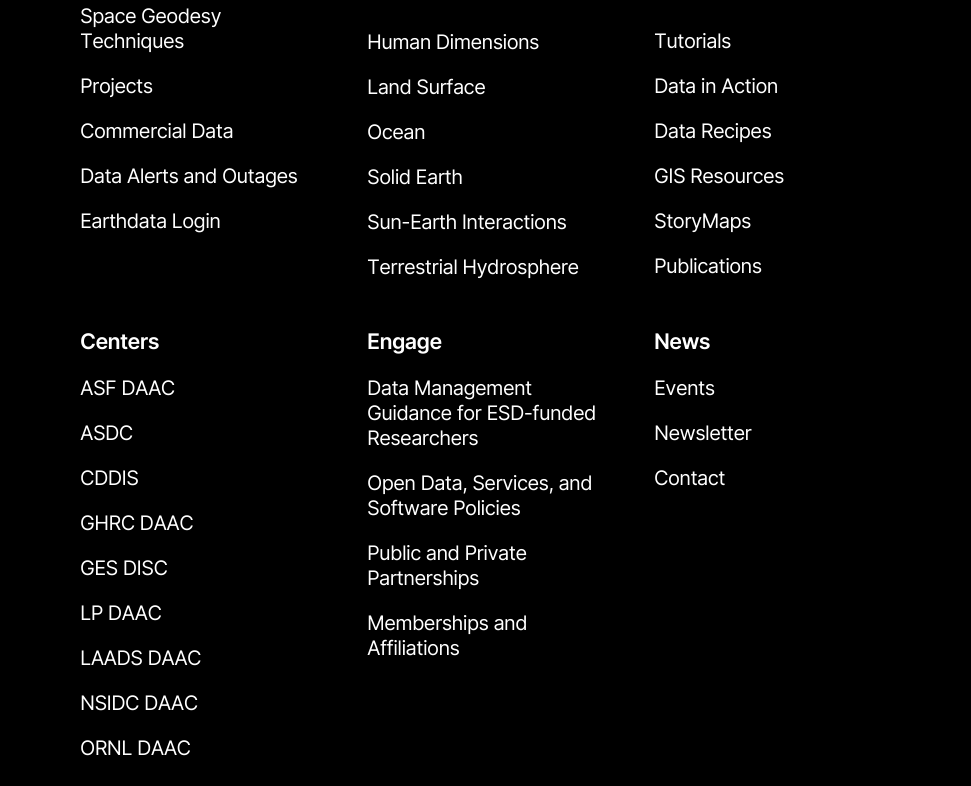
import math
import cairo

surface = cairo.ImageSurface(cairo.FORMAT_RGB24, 971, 786)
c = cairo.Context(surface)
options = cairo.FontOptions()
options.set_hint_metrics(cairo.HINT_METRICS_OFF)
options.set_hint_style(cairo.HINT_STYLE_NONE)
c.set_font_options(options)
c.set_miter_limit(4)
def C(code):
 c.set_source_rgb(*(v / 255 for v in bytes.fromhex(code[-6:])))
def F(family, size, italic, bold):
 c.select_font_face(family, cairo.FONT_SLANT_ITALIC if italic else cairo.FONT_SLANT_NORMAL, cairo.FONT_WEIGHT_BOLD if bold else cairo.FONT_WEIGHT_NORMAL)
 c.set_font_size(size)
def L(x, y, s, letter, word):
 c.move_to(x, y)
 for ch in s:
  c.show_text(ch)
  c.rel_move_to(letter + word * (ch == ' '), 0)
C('000000')
c.paint()
F('Inter',20,0,0)
C('ffffff')
L(80,23,'Space Geodesy',-.6,0)
L(80,48,'Techniques',-.6,0)
L(80,93,'Projects',-.6,0)
L(80,138,'Commercial Data',-.6,0)
L(80,183,'Data Alerts and Outages',-.6,0)
L(80,228,'Earthdata Login',-.6,0)
L(367,49,'Human Dimensions',-.6,0)
L(367,94,'Land Surface',-.6,0)
L(367,139,'Ocean',-.6,0)
L(367,184,'Solid Earth',-.6,0)
L(367,229,'Sun-Earth Interactions',-.6,0)
L(367,274,'Terrestrial Hydrosphere',-.6,0)
L(654,48,'Tutorials',-.6,0)
L(654,93,'Data in Action',-.6,0)
L(654,138,'Data Recipes',-.6,0)
L(654,183,'GIS Resources',-.6,0)
L(654,228,'StoryMaps',-.6,0)
L(654,273,'Publications',-.6,0)
F('Inter SemiBold',21.5,0,0)
L(80,349,'Centers',-.6,0)
F('Inter',20,0,0)
L(80,395,'ASF DAAC',-.6,0)
L(80,440,'ASDC',-.6,0)
L(80,485,'CDDIS',-.6,0)
L(80,530,'GHRC DAAC',-.6,0)
L(80,575,'GES DISC',-.6,0)
L(80,620,'LP DAAC',-.6,0)
L(80,665,'LAADS DAAC',-.6,0)
L(80,710,'NSIDC DAAC',-.6,0)
L(80,755,'ORNL DAAC',-.6,0)
F('Inter SemiBold',21.5,0,0)
L(367,349,'Engage',-.6,0)
F('Inter',20,0,0)
L(367,395,'Data Management',-.6,0)
L(367,420,'Guidance for ESD-funded',-.6,0)
L(367,445,'Researchers',-.6,0)
L(367,490,'Open Data, Services, and',-.6,0)
L(367,515,'Software Policies',-.6,0)
L(367,560,'Public and Private',-.6,0)
L(367,585,'Partnerships',-.6,0)
L(367,630,'Memberships and',-.6,0)
L(367,655,'Affiliations',-.6,0)
F('Inter SemiBold',21.5,0,0)
L(654,349,'News',-.6,0)
F('Inter',20,0,0)
L(654,395,'Events',-.6,0)
L(654,440,'Newsletter',-.6,0)
L(654,485,'Contact',-.6,0)
surface.write_to_png('o.png')
